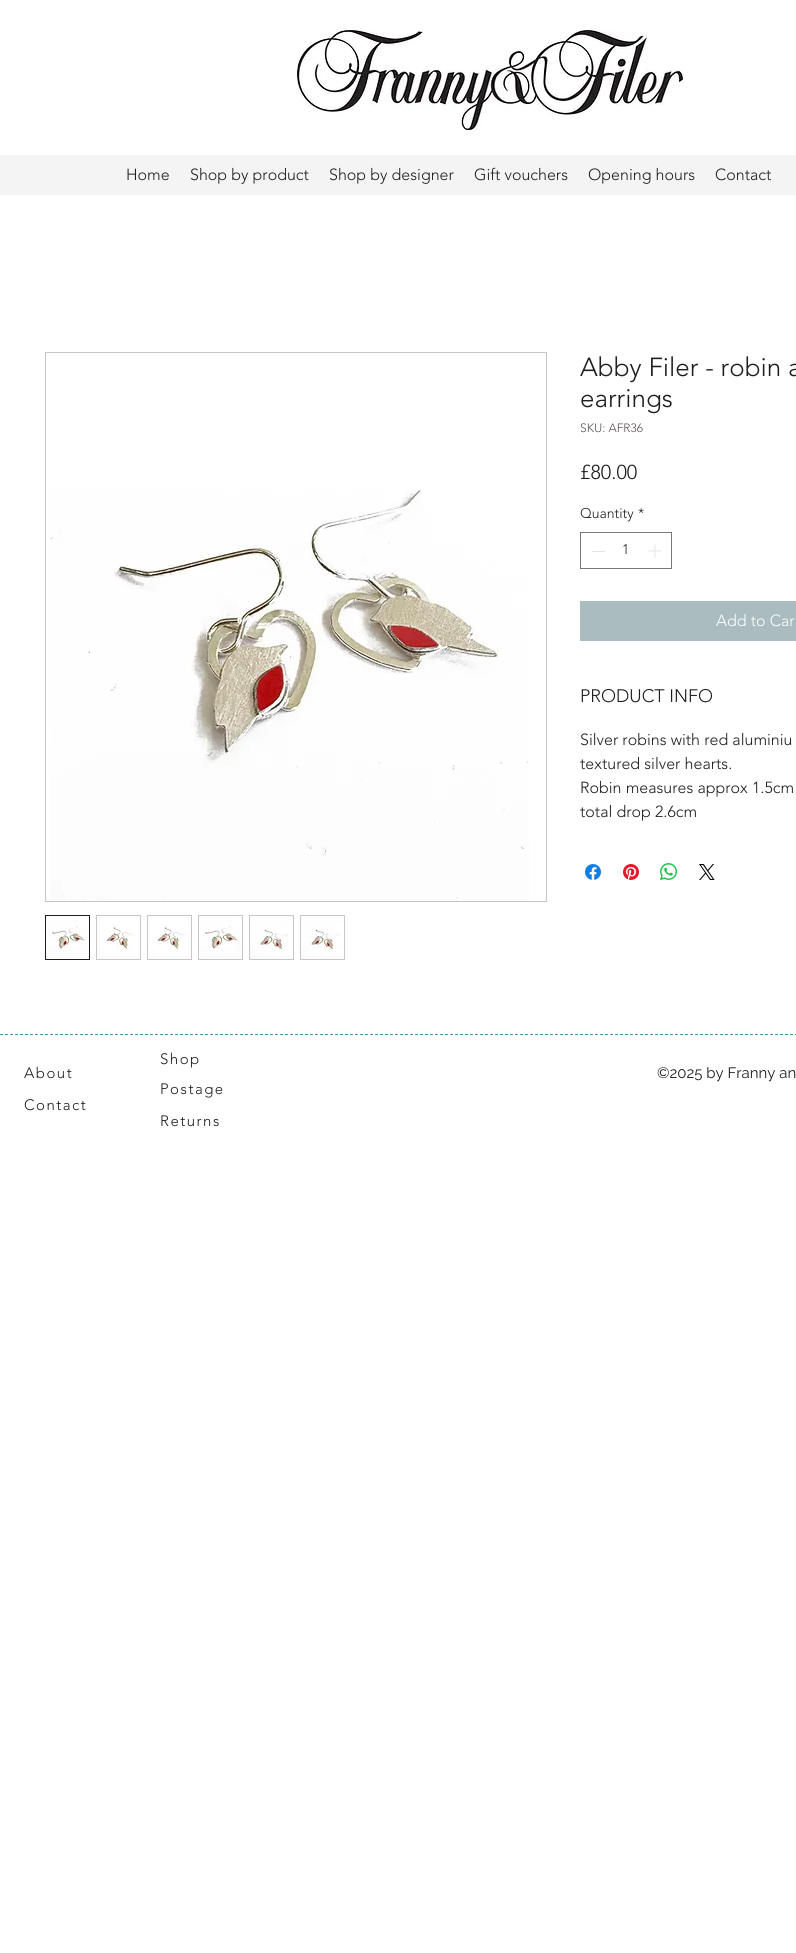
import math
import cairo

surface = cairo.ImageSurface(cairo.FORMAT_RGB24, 796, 1953)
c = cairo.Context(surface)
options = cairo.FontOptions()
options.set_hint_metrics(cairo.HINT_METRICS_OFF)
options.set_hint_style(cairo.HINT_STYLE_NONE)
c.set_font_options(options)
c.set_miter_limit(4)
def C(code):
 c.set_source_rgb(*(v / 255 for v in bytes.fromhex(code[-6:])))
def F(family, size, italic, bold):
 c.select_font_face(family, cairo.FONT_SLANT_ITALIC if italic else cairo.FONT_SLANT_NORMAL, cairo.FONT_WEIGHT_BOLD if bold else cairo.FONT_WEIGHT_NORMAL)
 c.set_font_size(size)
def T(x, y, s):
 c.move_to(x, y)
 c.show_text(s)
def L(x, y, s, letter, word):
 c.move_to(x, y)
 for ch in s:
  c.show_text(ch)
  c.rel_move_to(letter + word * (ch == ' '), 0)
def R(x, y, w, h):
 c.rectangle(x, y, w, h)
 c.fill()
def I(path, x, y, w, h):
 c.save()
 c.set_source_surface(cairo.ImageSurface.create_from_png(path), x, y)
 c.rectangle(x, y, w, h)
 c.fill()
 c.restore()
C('ffffff')
c.paint()
I('1.png',297,30,386,100)
C('f4f4f4')
R(0,155,796,40)
F('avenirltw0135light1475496 Light',16,0,0)
C('201d1e')
T(126,180,'Home')
T(190,180,'Shop by product')
T(329,180,'Shop by designer')
T(474,180,'Gift vouchers')
T(588,180,'Opening hours')
T(715,180,'Contact')
c.rectangle(45.5,352.5,501,549)
C('cac4c6')
c.set_line_width(1)
c.stroke()
I('2.png',50,489,479,412)
c.rectangle(45.5,915.5,44,44)
C('201d1e')
c.stroke()
I('3.png',46,916,43,43)
C('cac4c6')
R(96,915,45,45)
I('4.png',97,916,43,43)
R(147,915,45,45)
I('4.png',148,916,43,43)
R(198,915,45,45)
I('3.png',199,916,43,43)
R(249,915,45,45)
I('5.png',250,916,43,43)
R(300,915,45,45)
I('5.png',301,916,43,43)
F('avenirltw0135light1475496 Light',26,0,0)
C('201d1e')
T(580,376,'Abby Filer - robin a')
T(580,407,'earrings')
F('avenirltw0135light1475496 Light',12,0,0)
C('5b5255')
T(580,432,'SKU: AFR36')
F('avenirltw0135light1475496 Light',20,0,0)
C('201d1e')
T(580,479,'£80.00')
F('avenirltw0135light1475496 Light',14,0,0)
T(580,518,'Quantity')
T(638,518,'*')
c.rectangle(580.5,532.5,91,36)
C('797778')
c.stroke()
C('e3e3e3')
R(592,551,13,1)
C('201d1e')
T(622,554,'1')
I('6.png',648,544,14,14)
C('aabcbf')
R(580,601,216,40)
F('avenirltw0135light1475496 Light',16,0,0)
C('ffffff')
T(716,626,'Add to Car')
F('avenirltw0135light1475496 Light',18,0,0)
C('201d1e')
T(580,702,'PRODUCT INFO')
F('avenirltw0135light1475496 Light',16,0,0)
T(580,745,'Silver robins with red aluminiu')
T(580,769,'textured silver hearts.')
T(580,793,'Robin measures approx 1.5cm')
T(580,817,'total drop 2.6cm')
I('7.png',585,864,16,16)
I('8.png',623,864,16,16)
I('9.png',660,863,17,17)
I('10.png',699,864,16,16)
c.new_path()
c.move_to(-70,1034.5)
c.line_to(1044,1034.5)
C('4793a3')
c.set_dash([3,2])
c.stroke()
F('avenirltw0135light1475496 Light',15,0,0)
C('201d1e')
L(160,1064,'Shop',1.5,0)
L(24,1078,'About',1.5,0)
F('Raleway',15,0,0)
T(657,1078,'©2025 by Franny an')
F('avenirltw0135light1475496 Light',15,0,0)
L(160,1094,'Postage',1.5,0)
L(24,1110,'Contact',1.5,0)
L(160,1126,'Returns',1.5,0)
surface.write_to_png('o.png')
